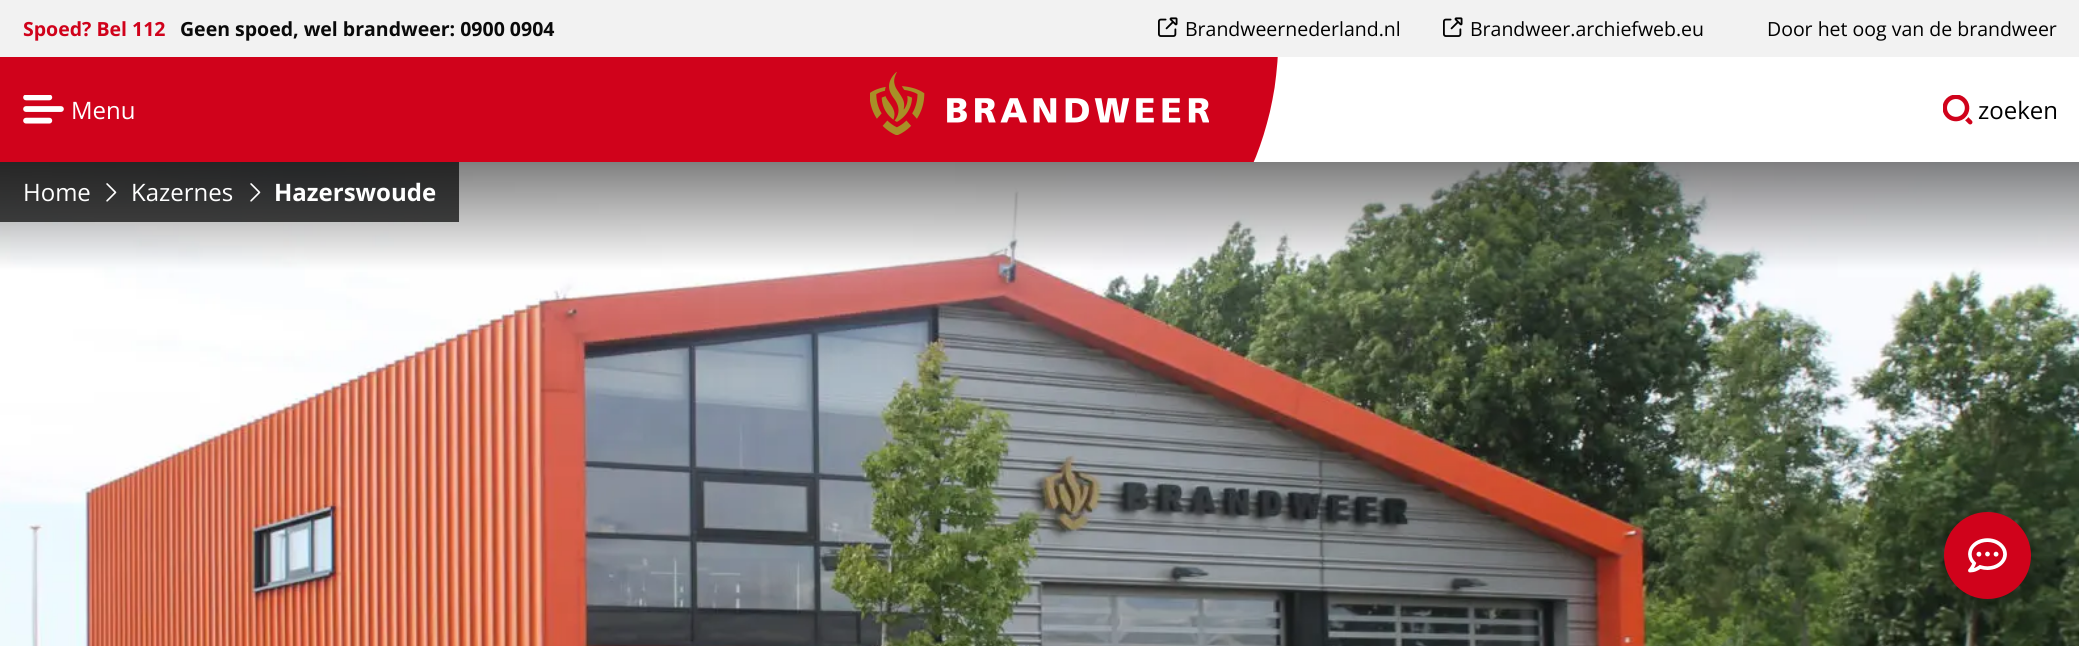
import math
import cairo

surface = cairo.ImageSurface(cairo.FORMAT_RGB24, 2079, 646)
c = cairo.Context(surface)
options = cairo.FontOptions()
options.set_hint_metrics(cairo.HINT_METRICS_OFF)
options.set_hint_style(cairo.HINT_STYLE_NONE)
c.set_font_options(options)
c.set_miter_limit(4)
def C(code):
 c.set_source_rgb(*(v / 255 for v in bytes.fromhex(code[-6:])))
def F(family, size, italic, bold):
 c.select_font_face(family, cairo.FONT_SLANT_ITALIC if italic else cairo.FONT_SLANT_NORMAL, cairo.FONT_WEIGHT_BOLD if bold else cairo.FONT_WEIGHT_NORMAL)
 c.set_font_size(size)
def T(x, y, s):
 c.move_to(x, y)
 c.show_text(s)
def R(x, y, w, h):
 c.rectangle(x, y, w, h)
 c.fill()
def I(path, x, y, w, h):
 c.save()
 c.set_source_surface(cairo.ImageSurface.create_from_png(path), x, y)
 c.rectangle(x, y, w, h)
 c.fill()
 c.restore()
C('f2f2f2')
c.paint()
F('Open Sans',19.5,0,1)
C('d0021b')
T(23,36,'Spoed? Bel 112')
C('0a0a0a')
T(180,36,'Geen spoed, wel brandweer: 0900 0904')
I('1.png',1158,17,20,20)
F('Open Sans',19.5,0,0)
C('000000')
T(1185,36,'Brandweernederland.nl')
I('1.png',1443,17,20,20)
T(1470,36,'Brandweer.archiefweb.eu')
T(1767,36,'Door het oog van de brandweer')
C('ffffff')
R(1253,57,826,105)
C('d0021b')
R(0,57,1248,105)
I('2.png',23,95,41,29)
F('Open Sans',24,0,0)
C('ffffff')
T(71,119,'Menu')
I('3.png',1248,57,30,105)
I('4.png',870,72,339,63)
I('5.png',1943,95,30,30)
C('000000')
T(1978,119,'zoeken')
I('8.png',0,162,2079,484)
c.set_source_rgba(0,0,0,0.7)
R(0,162,459,60)
C('ffffff')
T(23,201,'Home')
I('6.png',106,183,11,19)
T(131,201,'Kazernes')
I('7.png',250,183,11,19)
F('Open Sans',24,0,1)
T(274,201,'Hazerswoude')
C('d0021b')
c.new_path()
c.arc(1987.5,555.5,43.5,0,2 * math.pi)
c.fill()
I('9.png',1968,538,39,35)
surface.write_to_png('o.png')
